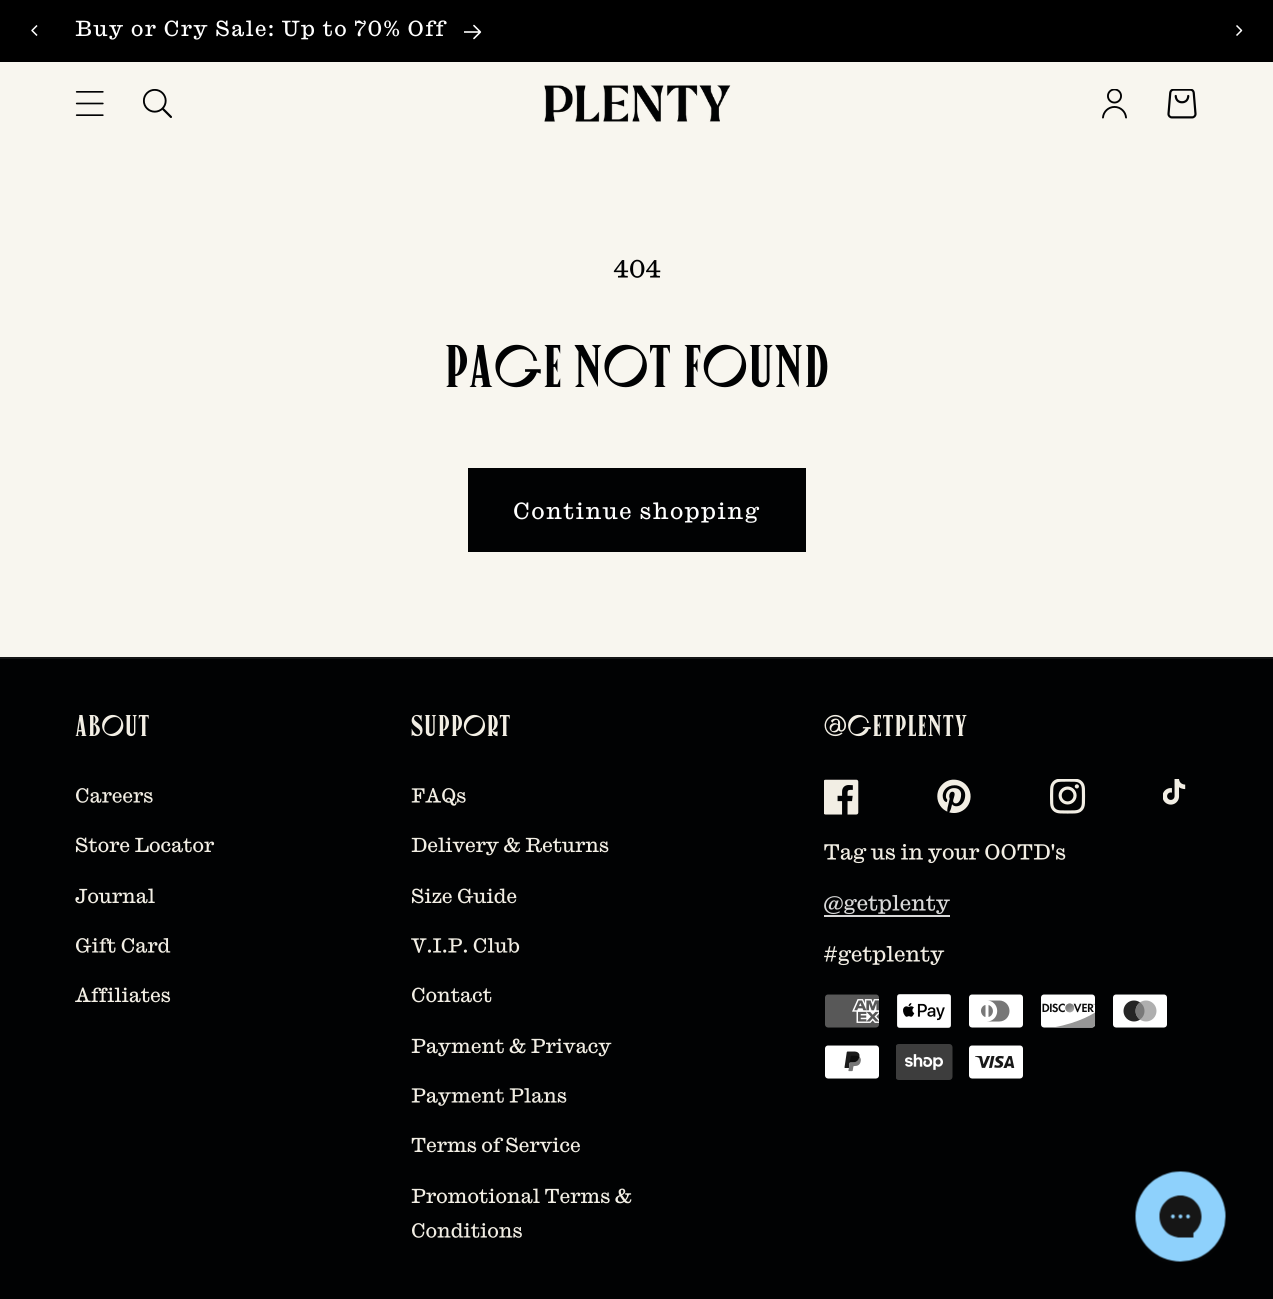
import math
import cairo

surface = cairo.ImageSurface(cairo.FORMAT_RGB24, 1273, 1299)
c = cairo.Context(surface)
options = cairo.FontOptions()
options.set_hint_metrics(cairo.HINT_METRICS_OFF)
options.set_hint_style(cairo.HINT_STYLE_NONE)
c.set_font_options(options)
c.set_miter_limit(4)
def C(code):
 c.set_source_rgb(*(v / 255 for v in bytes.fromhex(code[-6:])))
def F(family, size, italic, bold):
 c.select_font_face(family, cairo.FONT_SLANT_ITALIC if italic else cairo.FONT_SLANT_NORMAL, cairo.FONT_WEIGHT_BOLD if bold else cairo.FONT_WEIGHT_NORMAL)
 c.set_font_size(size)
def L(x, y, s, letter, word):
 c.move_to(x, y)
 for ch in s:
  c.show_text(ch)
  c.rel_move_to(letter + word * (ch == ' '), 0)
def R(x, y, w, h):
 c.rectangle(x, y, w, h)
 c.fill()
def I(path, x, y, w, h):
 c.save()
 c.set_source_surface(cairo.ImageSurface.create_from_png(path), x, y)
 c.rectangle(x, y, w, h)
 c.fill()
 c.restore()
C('f8f6ef')
c.paint()
C('000000')
R(0,0,1273,62)
I('1.png',31,25,7,11)
I('2.png',75,20,372,20)
I('3.png',464,24,18,16)
I('4.png',1236,25,7,11)
I('5.png',75,91,29,25)
I('6.png',143,89,29,29)
I('7.png',544,85,187,37)
I('8.png',1102,89,25,30)
I('9.png',1167,89,30,30)
I('10.png',613,259,48,19)
F('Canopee',60,0,0)
C('010203')
L(444,387,'Page not found',.9,0)
R(468,468,338,84)
I('11.png',514,502,246,21)
R(0,659,1273,640)
C('151617')
R(0,657,1273,2)
F('Canopee',30,0,0)
C('f2eee4')
L(75,736,'About',.9,0)
I('12.png',76,788,77,15)
I('13.png',75,837,140,16)
I('14.png',75,888,80,16)
I('15.png',76,938,95,15)
I('16.png',75,987,96,16)
L(411,736,'Support',.9,0)
I('17.png',411,788,55,18)
I('18.png',411,837,198,19)
I('19.png',411,888,106,16)
I('20.png',411,938,109,15)
I('21.png',412,987,80,16)
I('22.png',411,1038,201,19)
I('23.png',411,1088,156,18)
I('24.png',411,1137,169,16)
I('25.png',411,1188,221,16)
I('26.png',412,1223,110,15)
L(824,736,'@GetPlenty',.9,0)
I('27.png',824,779,35,36)
I('28.png',937,779,34,34)
I('29.png',1050,779,36,35)
I('30.png',1163,779,23,26)
I('31.png',824,843,242,21)
I('32.png',824,894,126,21)
C('d9d9d9')
R(824,915,126,2)
I('33.png',824,945,121,21)
I('34.png',825,994,54,34)
I('35.png',897,994,54,34)
I('36.png',969,994,54,34)
I('37.png',1041,994,55,34)
I('38.png',1113,994,54,34)
I('39.png',825,1045,54,34)
I('40.png',896,1044,57,36)
I('41.png',969,1045,54,34)
I('42.png',1135,1171,91,91)
surface.write_to_png('o.png')
